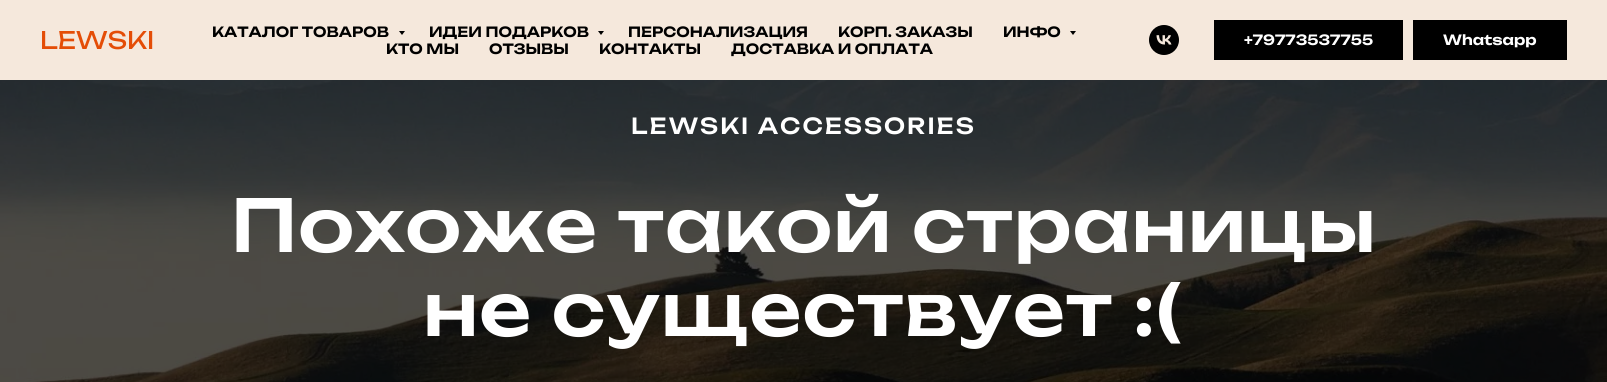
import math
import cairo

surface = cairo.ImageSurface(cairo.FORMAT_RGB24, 1607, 382)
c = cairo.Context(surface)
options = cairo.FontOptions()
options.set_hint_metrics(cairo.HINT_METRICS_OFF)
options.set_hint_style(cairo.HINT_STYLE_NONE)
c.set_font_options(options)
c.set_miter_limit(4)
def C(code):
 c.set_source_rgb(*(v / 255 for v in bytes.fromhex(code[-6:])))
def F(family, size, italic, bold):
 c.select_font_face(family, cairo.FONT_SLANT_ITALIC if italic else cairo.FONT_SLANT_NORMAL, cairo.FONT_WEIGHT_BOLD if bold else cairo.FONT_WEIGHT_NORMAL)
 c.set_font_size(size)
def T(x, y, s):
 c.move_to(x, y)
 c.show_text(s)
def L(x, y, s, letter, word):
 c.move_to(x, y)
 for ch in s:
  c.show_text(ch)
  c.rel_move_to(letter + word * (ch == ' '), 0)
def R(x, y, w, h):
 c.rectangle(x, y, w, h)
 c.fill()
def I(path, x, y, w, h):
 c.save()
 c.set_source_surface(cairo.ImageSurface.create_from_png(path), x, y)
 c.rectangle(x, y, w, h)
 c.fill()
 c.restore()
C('ffffff')
c.paint()
C('f5e8dc')
R(0,0,1607,80)
F('Unbounded',24,0,0)
C('e44d07')
T(40,49,'LEWSKI')
F('Unbounded SemiBold',14,0,0)
C('000000')
T(212,37,'КАТАЛОГ ТОВАРОВ')
c.new_path()
c.move_to(399,31)
c.line_to(405,31)
c.line_to(402,35)
c.close_path()
c.fill()
T(429,37,'ИДЕИ ПОДАРКОВ')
c.new_path()
c.move_to(598,31)
c.line_to(604,31)
c.line_to(601,35)
c.close_path()
c.fill()
T(628,37,'ПЕРСОНАЛИЗАЦИЯ')
T(838,37,'КОРП. ЗАКАЗЫ')
T(1003,37,'ИНФО')
c.new_path()
c.move_to(1070,31)
c.line_to(1076,31)
c.line_to(1073,35)
c.close_path()
c.fill()
T(386,54,'КТО МЫ')
T(489,54,'ОТЗЫВЫ')
T(599,54,'КОНТАКТЫ')
T(731,54,'ДОСТАВКА И ОПЛАТА')
I('1.png',1149,25,30,30)
R(1214,20,189,40)
C('ffffff')
T(1244,45,'+79773537755')
C('000000')
R(1413,20,154,40)
C('ffffff')
T(1443,45,'Whatsapp')
I('2.png',0,80,1607,302)
F('Unbounded Medium',22,0,0)
L(631,134,'LEWSKI ACCESSORIES',2,0)
F('Unbounded Medium',72,0,0)
L(231,252,'Похоже такой страницы',1,0)
L(423,336,'не существует :(',1,0)
surface.write_to_png('o.png')
